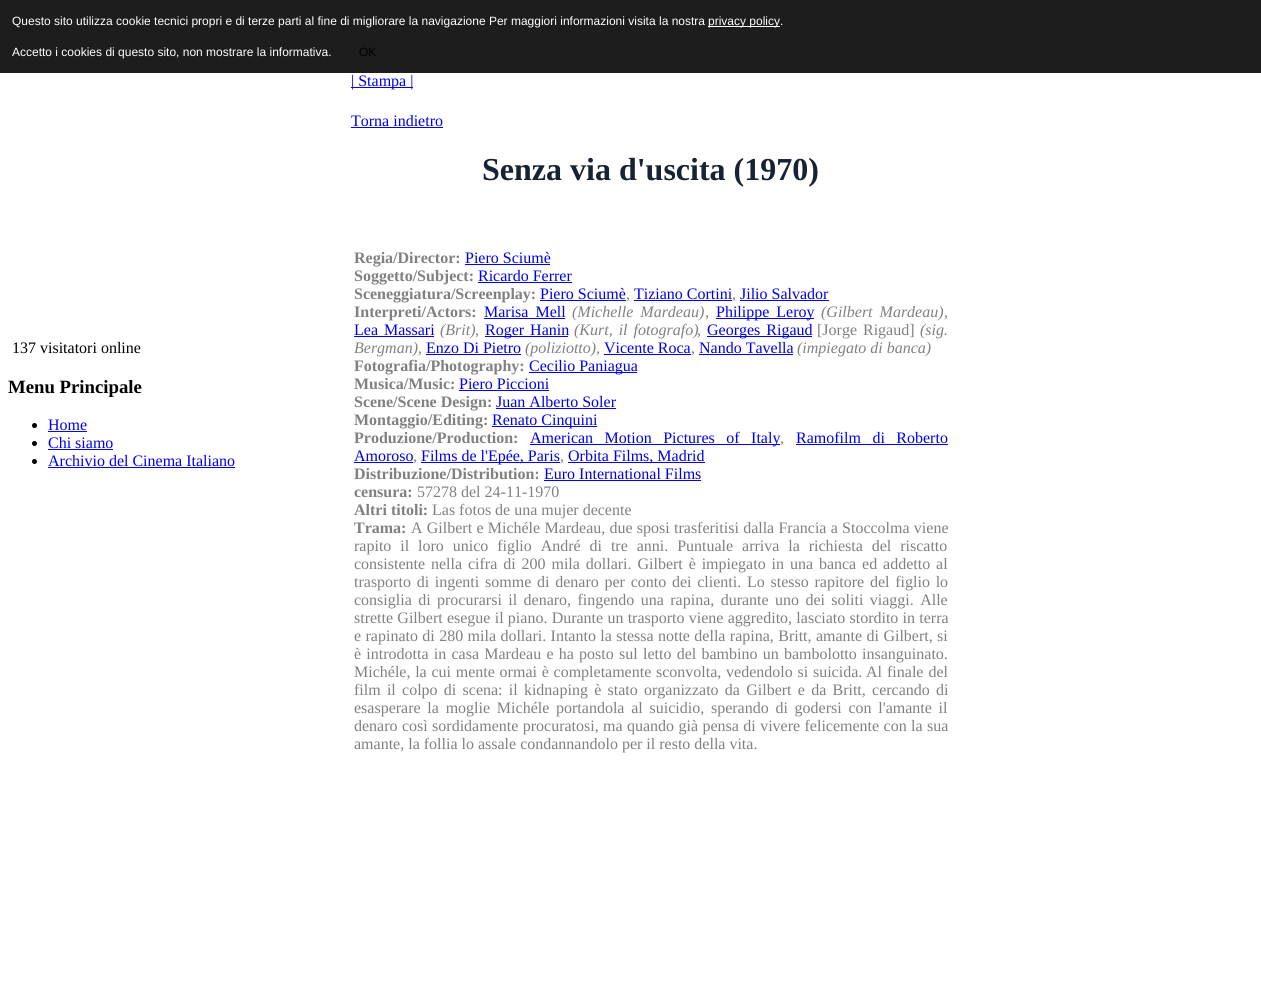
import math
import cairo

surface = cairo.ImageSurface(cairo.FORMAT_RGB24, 1261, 1007)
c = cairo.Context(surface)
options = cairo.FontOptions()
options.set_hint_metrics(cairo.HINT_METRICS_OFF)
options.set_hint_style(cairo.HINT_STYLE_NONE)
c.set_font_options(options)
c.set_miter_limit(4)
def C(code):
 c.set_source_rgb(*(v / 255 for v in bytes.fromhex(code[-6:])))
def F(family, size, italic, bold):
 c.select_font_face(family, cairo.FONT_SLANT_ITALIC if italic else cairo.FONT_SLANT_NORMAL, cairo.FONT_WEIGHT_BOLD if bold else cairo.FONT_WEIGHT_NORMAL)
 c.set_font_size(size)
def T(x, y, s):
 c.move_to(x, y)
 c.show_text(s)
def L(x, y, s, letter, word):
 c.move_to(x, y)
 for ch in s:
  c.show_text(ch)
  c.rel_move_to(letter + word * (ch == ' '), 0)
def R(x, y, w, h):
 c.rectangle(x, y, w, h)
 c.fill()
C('ffffff')
c.paint()
C('1d1d1d')
R(0,0,1261,73)
F('Liberation Sans',12,0,0)
C('ffffff')
T(12,25,'Questo sito utilizza cookie tecnici propri e di terze parti al fine di migliorare la navigazione Per maggiori informazioni visita la nostra')
R(708,26,72,1)
T(708,25,'privacy policy.')
T(12,56,'Accetto i cookies di questo sito, non mostrare la informativa.')
C('000000')
T(359,56,'OK')
F('Liberation Serif',16,0,0)
T(12,353,'137 visitatori online')
F('Liberation Serif',18.75,0,1)
T(8,393,'Menu Principale')
c.new_path()
c.arc(34.5,425.5,2.5,0,2 * math.pi)
c.fill()
F('Liberation Serif',16,0,0)
C('0000ee')
T(48,430,'Home')
R(48,431,39,1)
C('000000')
c.new_path()
c.arc(34.5,443.5,2.5,0,2 * math.pi)
c.fill()
C('0000ee')
T(48,448,'Chi siamo')
R(48,449,65,1)
C('000000')
c.new_path()
c.arc(34.5,461.5,2.5,0,2 * math.pi)
c.fill()
C('0000ee')
T(48,466,'Archivio del Cinema Italiano')
R(48,467,187,1)
R(351,87,62,1)
T(351,86,'| Stampa |')
T(351,126,'Torna indietro')
R(351,127,92,1)
F('Liberation Serif',32,0,1)
C('172332')
T(482,180,'Senza via d\'uscita (1970)')
F('Liberation Serif',16,0,1)
C('808080')
T(354,263,'Regia/Director:')
F('Liberation Serif',16,0,0)
C('0000ee')
T(465,263,'Piero Sciumè')
R(465,264,85,1)
F('Liberation Serif',16,0,1)
C('808080')
T(354,281,'Soggetto/Subject:')
F('Liberation Serif',16,0,0)
C('0000ee')
T(478,281,'Ricardo Ferrer')
R(478,282,94,1)
F('Liberation Serif',16,0,1)
C('808080')
T(354,299,'Sceneggiatura/Screenplay:')
F('Liberation Serif',16,0,0)
C('0000ee')
T(540,299,'Piero Sciumè')
C('808080')
T(626,299,',')
C('0000ee')
R(540,300,86,1)
T(634,299,'Tiziano Cortini')
C('808080')
T(732,299,',')
C('0000ee')
R(634,300,98,1)
R(740,300,89,1)
T(740,299,'Jilio Salvador')
F('Liberation Serif',16,0,1)
C('808080')
T(354,317,'Interpreti/Actors:')
F('Liberation Serif',16,0,0)
C('0000ee')
L(484,317,'Marisa Mell',0,3)
R(484,318,81,1)
F('Liberation Serif',16,1,0)
C('808080')
L(572,317,'(Michelle Mardeau)',0,3)
F('Liberation Serif',16,0,0)
T(705,317,',')
C('0000ee')
R(716,318,98,1)
L(716,317,'Philippe Leroy',0,3)
F('Liberation Serif',16,1,0)
C('808080')
L(821,317,'(Gilbert Mardeau)',0,3)
F('Liberation Serif',16,0,0)
T(944,317,',')
C('0000ee')
L(354,335,'Lea Massari',0,2)
R(354,336,80,1)
F('Liberation Serif',16,1,0)
C('808080')
T(440,335,'(Brit)')
F('Liberation Serif',16,0,0)
T(475,335,',')
C('0000ee')
R(485,336,83,1)
L(485,335,'Roger Hanin',0,2)
F('Liberation Serif',16,1,0)
C('808080')
L(574,335,'(Kurt, il fotografo)',0,2)
F('Liberation Serif',16,0,0)
T(697,335,',')
C('0000ee')
R(707,336,105,1)
L(707,335,'Georges Rigaud',0,2)
C('808080')
L(817,335,'[Jorge Rigaud]',0,2)
F('Liberation Serif',16,1,0)
T(920,335,'(sig.')
T(354,353,'Bergman)')
F('Liberation Serif',16,0,0)
T(418,353,',')
C('0000ee')
R(426,354,95,1)
T(426,353,'Enzo Di Pietro')
F('Liberation Serif',16,1,0)
C('808080')
T(525,353,'(poliziotto)')
F('Liberation Serif',16,0,0)
T(596,353,',')
C('0000ee')
T(604,353,'Vicente Roca')
C('808080')
T(691,353,',')
C('0000ee')
R(604,354,87,1)
R(699,354,94,1)
T(699,353,'Nando Tavella')
F('Liberation Serif',16,1,0)
C('808080')
T(797,353,'(impiegato di banca)')
F('Liberation Serif',16,0,1)
T(354,371,'Fotografia/Photography:')
C('0000ee')
R(529,372,108,1)
F('Liberation Serif',16,0,0)
T(529,371,'Cecilio Paniagua')
F('Liberation Serif',16,0,1)
C('808080')
T(354,389,'Musica/Music:')
F('Liberation Serif',16,0,0)
C('0000ee')
T(459,389,'Piero Piccioni')
R(459,390,90,1)
F('Liberation Serif',16,0,1)
C('808080')
T(354,407,'Scene/Scene Design:')
F('Liberation Serif',16,0,0)
C('0000ee')
T(496,407,'Juan Alberto Soler')
R(496,408,120,1)
F('Liberation Serif',16,0,1)
C('808080')
T(354,425,'Montaggio/Editing:')
C('0000ee')
R(492,426,105,1)
F('Liberation Serif',16,0,0)
T(492,425,'Renato Cinquini')
F('Liberation Serif',16,0,1)
C('808080')
T(354,443,'Produzione/Production:')
C('0000ee')
R(530,444,250,1)
F('Liberation Serif',16,0,0)
L(530,443,'American Motion Pictures of Italy',0,7.5)
C('808080')
T(780,443,',')
C('0000ee')
R(796,444,152,1)
L(796,443,'Ramofilm di Roberto',0,7.5)
T(354,461,'Amoroso')
C('808080')
T(413,461,',')
C('0000ee')
R(354,462,59,1)
R(421,462,139,1)
T(421,461,'Films de l\'Epée, Paris')
C('808080')
T(560,461,',')
C('0000ee')
R(568,462,137,1)
T(568,461,'Orbita Films, Madrid')
F('Liberation Serif',16,0,1)
C('808080')
T(354,479,'Distribuzione/Distribution:')
F('Liberation Serif',16,0,0)
C('0000ee')
T(544,479,'Euro International Films')
R(544,480,157,1)
F('Liberation Serif',16,0,1)
C('808080')
T(354,497,'censura:')
F('Liberation Serif',16,0,0)
T(417,497,'57278 del 24-11-1970')
F('Liberation Serif',16,0,1)
T(354,515,'Altri titoli:')
F('Liberation Serif',16,0,0)
T(432,515,'Las fotos de una mujer decente')
F('Liberation Serif',16,0,1)
T(354,533,'Trama:')
F('Liberation Serif',16,0,0)
L(411,533,'A Gilbert e Michéle Mardeau, due sposi trasferitisi dalla Francia a Stoccolma viene',0,.25)
L(354,551,'rapito il loro unico figlio André di tre anni. Puntuale arriva la richiesta del riscatto',0,4.9)
L(354,569,'consistente nella cifra di 200 mila dollari. Gilbert è impiegato in una banca ed addetto al',0,1.9)
L(354,587,'trasporto di ingenti somme di denaro per conto dei clienti. Lo stesso rapitore del figlio lo',0,1.75)
L(354,605,'consiglia di procurarsi il denaro, fingendo una rapina, durante uno dei soliti viaggi. Alle',0,2.4)
L(354,623,'strette Gilbert esegue il piano. Durante un trasporto viene aggredito, lasciato stordito in terra',0,.25)
L(354,641,'e rapinato di 280 mila dollari. Intanto la stessa notte della rapina, Britt, amante di Gilbert, si',0,.4)
L(354,659,'è introdotta in casa Mardeau e ha posto sul letto del bambino un bambolotto insanguinato.',0,1.25)
L(354,677,'Michéle, la cui mente ormai è completamente sconvolta, vedendolo si suicida.',0,.75)
L(866,677,'Al finale del',0,1)
L(354,695,'film il colpo di scena: il kidnaping è stato organizzato da Gilbert e da Britt, cercando di',0,2.25)
L(354,713,'esasperare la moglie Michéle portandola al suicidio, sperando di godersi con l\'amante il',0,2.75)
L(354,731,'denaro così sordidamente procuratosi, ma quando già pensa di vivere felicemente con la sua',0,.4)
T(354,749,'amante, la follia lo assale condannandolo per il resto della vita.')
surface.write_to_png('o.png')
